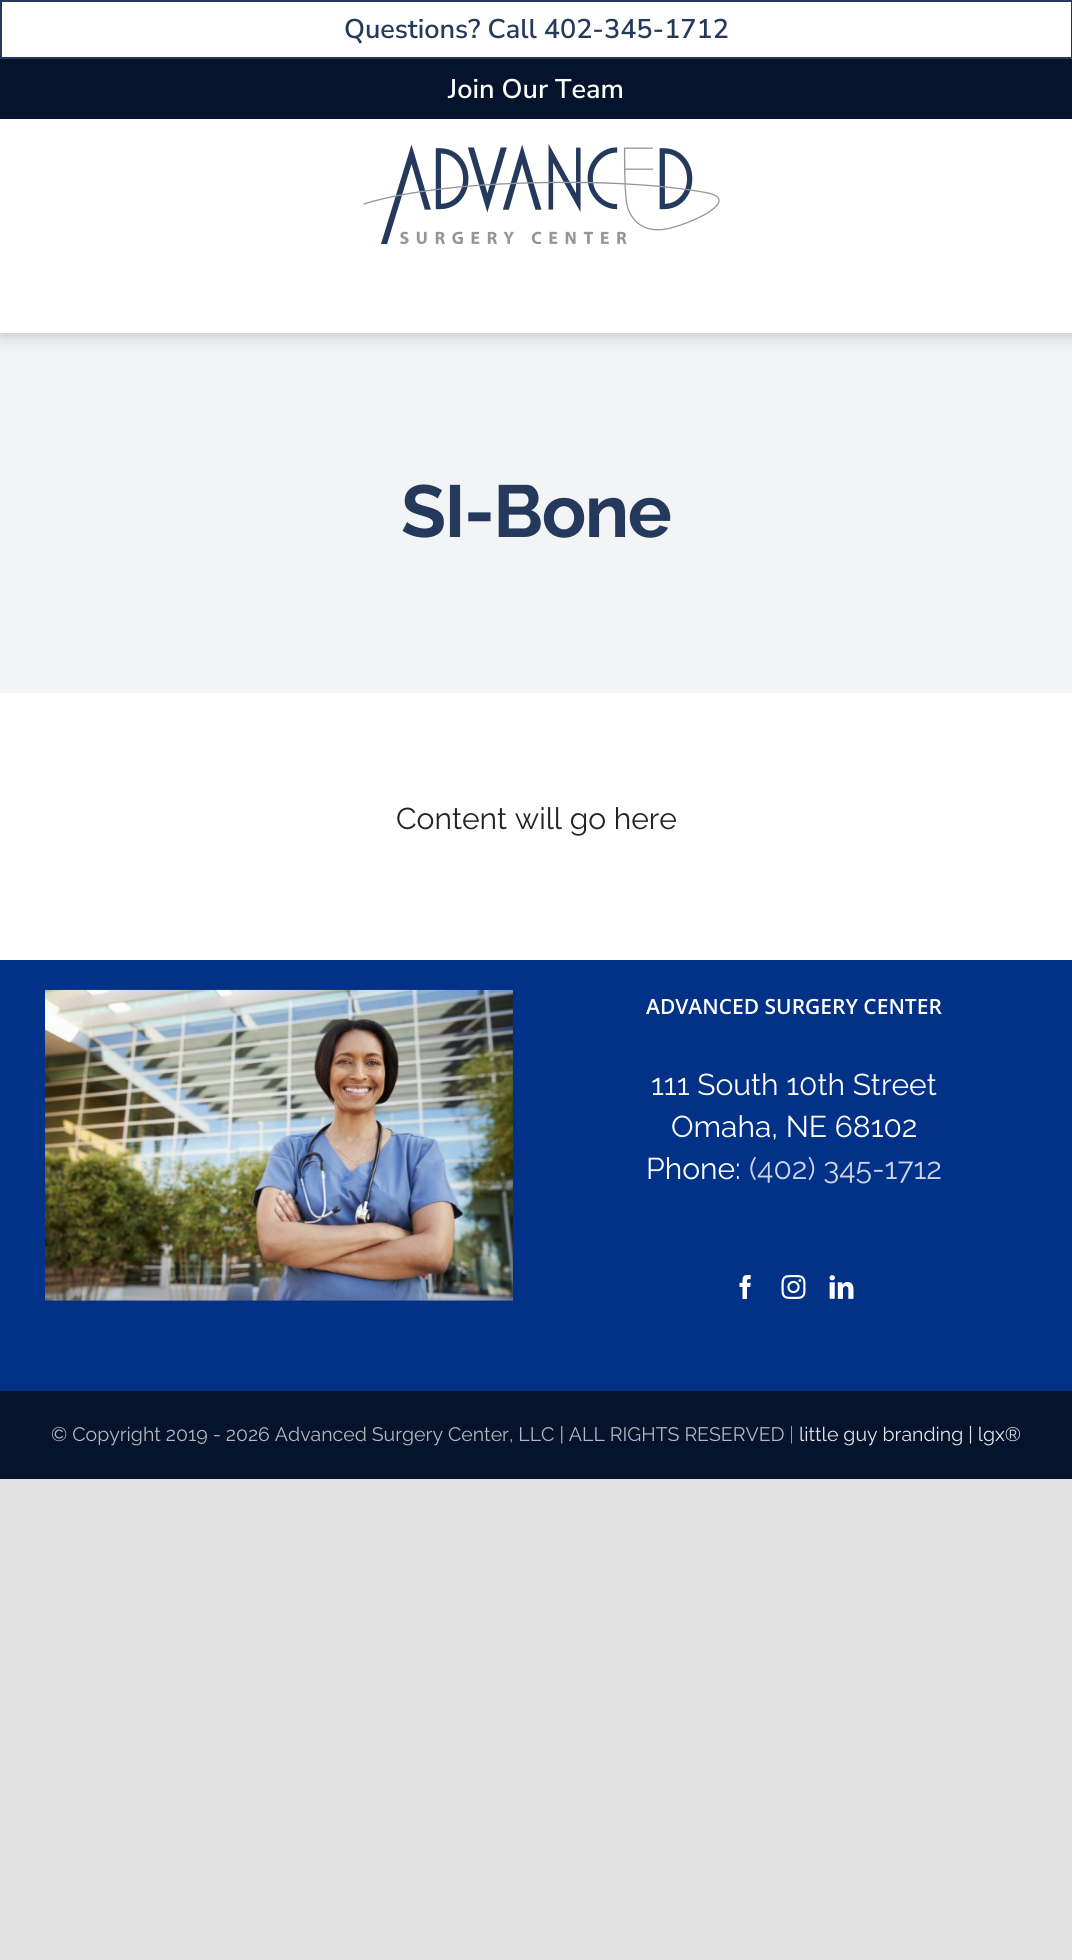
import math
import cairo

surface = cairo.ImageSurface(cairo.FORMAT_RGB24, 1072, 1960)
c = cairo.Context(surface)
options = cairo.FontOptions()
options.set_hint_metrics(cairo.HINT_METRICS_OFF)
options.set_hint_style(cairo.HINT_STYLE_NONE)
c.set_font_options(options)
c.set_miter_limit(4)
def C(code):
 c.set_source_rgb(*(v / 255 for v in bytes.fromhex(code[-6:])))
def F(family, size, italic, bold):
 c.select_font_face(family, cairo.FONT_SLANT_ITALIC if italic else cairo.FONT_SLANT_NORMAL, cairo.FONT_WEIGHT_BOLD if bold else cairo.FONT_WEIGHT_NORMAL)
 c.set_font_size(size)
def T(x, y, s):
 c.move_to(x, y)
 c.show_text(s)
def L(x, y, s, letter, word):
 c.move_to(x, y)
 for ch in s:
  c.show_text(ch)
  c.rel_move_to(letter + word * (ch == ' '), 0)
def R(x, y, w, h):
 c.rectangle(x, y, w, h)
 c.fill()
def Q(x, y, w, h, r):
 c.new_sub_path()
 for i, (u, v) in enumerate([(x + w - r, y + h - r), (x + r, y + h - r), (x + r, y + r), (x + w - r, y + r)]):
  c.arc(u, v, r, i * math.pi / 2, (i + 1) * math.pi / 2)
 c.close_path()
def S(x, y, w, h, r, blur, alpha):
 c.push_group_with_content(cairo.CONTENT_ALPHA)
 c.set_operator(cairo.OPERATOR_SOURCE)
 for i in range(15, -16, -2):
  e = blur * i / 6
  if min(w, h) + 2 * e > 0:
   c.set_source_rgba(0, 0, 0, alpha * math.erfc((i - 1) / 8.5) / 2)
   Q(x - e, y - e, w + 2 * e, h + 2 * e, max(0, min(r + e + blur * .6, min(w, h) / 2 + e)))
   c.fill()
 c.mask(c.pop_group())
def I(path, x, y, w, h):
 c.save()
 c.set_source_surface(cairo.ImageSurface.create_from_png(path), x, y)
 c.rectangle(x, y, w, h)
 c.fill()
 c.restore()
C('e2e2e2')
c.paint()
C('ffffff')
R(0,119,1072,841)
c.rectangle(1,1,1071,57)
c.fill_preserve()
C('25395d')
c.stroke()
F('Nunito Sans SemiBold',27,0,0)
T(344,38,'Questions? Call 402-345-1712')
C('05132c')
R(0,59,1072,60)
C('ffffff')
T(448,98,'Join Our Team')
C('f3f4f5')
R(0,333,1072,360)
c.save()
c.set_fill_rule(cairo.FILL_RULE_EVEN_ODD)
c.new_path()
c.move_to(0,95)
c.line_to(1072,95)
c.line_to(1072,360)
c.line_to(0,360)
c.close_path()
c.move_to(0,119)
c.line_to(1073,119)
c.line_to(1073,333)
c.line_to(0,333)
c.close_path()
c.clip()
C('001f4f')
S(0,120,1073,215,0,8,.25)
c.restore()
I('1.png',363,144,357,101)
F('Raleway',73.5,0,1)
C('25395d')
L(401,537,'SI-Bone',-1.5,0)
F('Raleway',30,0,0)
C('232323')
T(396,829,'Content will go here')
C('023188')
R(0,960,1072,431)
I('2.png',45,989,468,312)
F('Open Sans SemiBold',21,0,0)
C('ffffff')
T(646,1014,'ADVANCED SURGERY CENTER')
F('Raleway',30,0,0)
T(651,1095,'111 South 10th Street')
T(671,1137,'Omaha, NE 68102')
T(646,1179,'Phone:')
C('ccd6e7')
T(749,1179,'(402) 345-1712')
I('3.png',739,1275,12,24)
I('4.png',781,1275,25,24)
I('5.png',829,1275,25,24)
C('05132c')
R(0,1391,1072,88)
F('Raleway',19.5,0,0)
C('b4b8c0')
T(51,1441,'© Copyright 2019 - 2026 Advanced Surgery Center, LLC | ALL RIGHTS RESERVED |')
C('e6e7ea')
T(799,1441,'little guy branding | lgx®')
surface.write_to_png('o.png')
